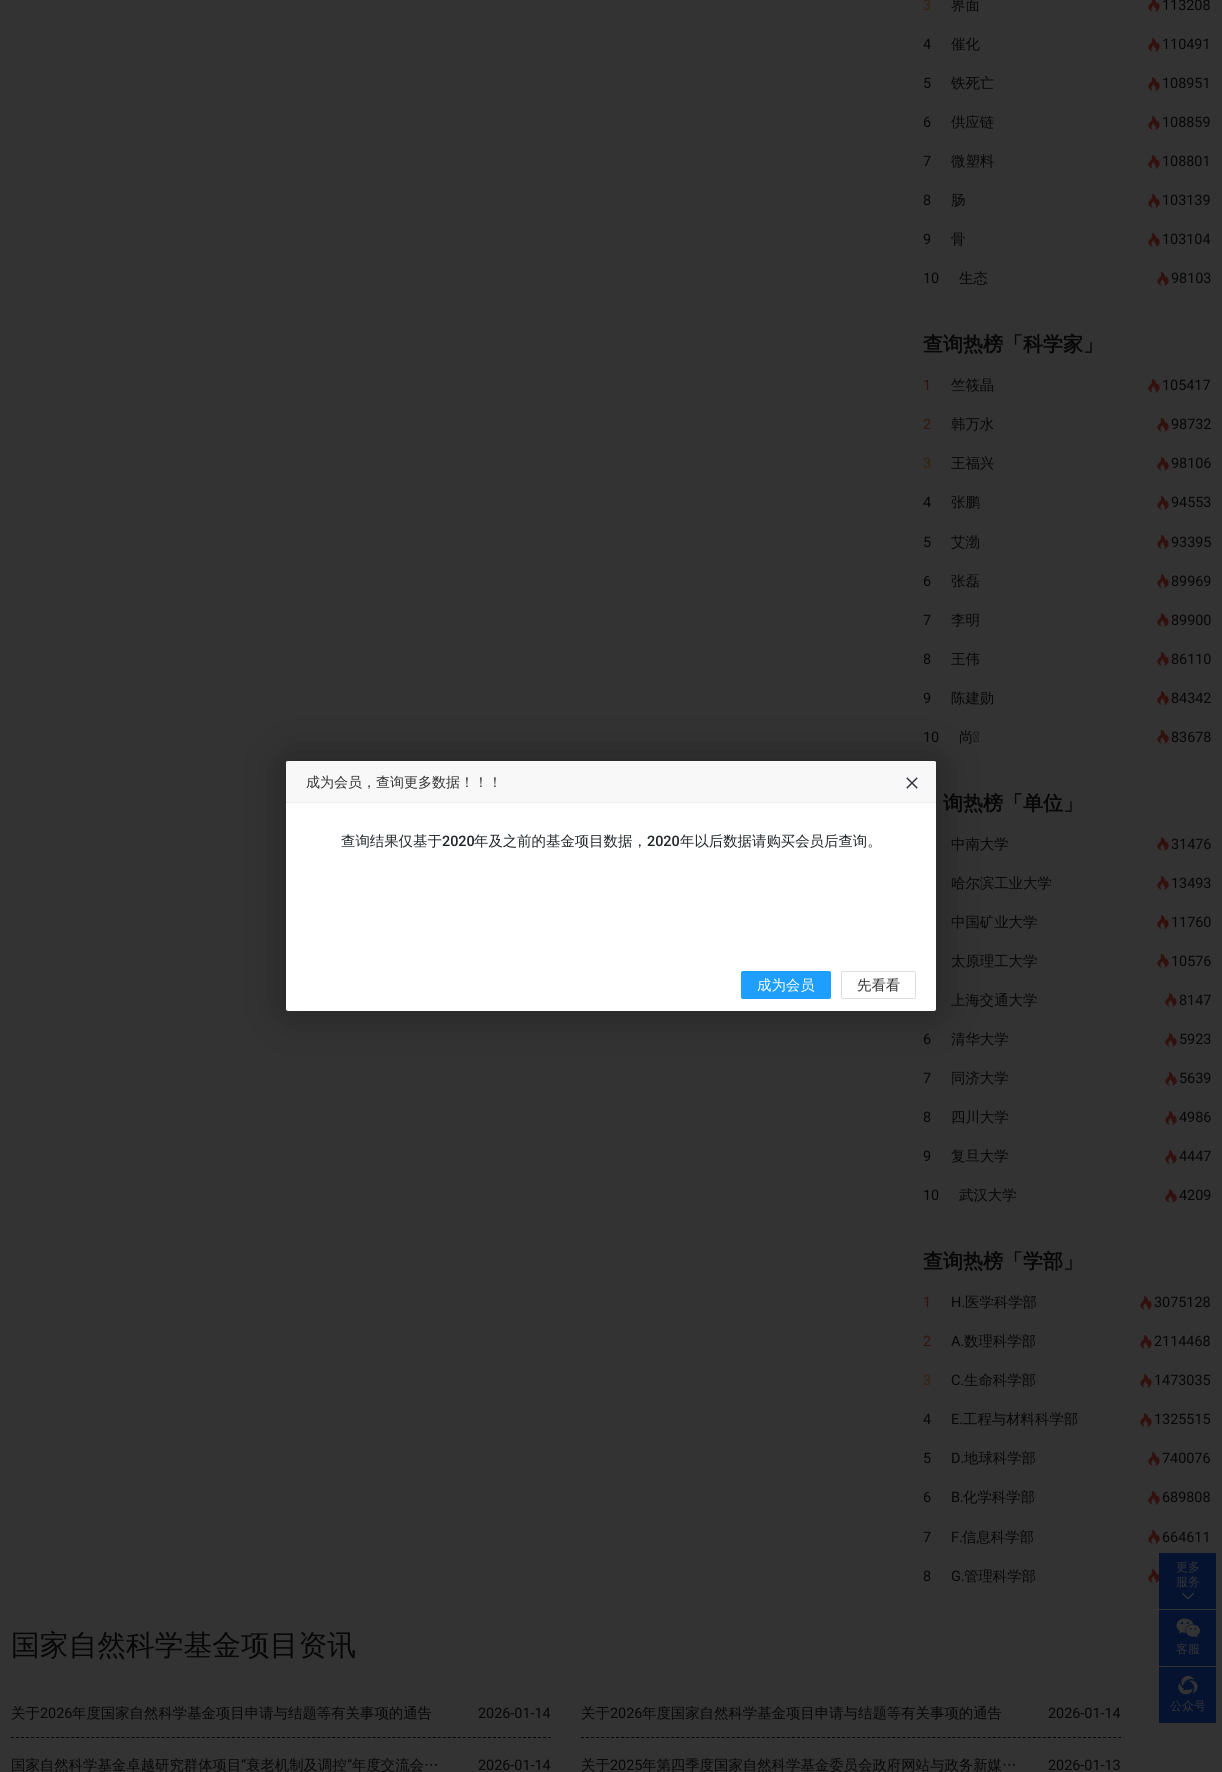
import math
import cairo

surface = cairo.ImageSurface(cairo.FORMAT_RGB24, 1222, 1772)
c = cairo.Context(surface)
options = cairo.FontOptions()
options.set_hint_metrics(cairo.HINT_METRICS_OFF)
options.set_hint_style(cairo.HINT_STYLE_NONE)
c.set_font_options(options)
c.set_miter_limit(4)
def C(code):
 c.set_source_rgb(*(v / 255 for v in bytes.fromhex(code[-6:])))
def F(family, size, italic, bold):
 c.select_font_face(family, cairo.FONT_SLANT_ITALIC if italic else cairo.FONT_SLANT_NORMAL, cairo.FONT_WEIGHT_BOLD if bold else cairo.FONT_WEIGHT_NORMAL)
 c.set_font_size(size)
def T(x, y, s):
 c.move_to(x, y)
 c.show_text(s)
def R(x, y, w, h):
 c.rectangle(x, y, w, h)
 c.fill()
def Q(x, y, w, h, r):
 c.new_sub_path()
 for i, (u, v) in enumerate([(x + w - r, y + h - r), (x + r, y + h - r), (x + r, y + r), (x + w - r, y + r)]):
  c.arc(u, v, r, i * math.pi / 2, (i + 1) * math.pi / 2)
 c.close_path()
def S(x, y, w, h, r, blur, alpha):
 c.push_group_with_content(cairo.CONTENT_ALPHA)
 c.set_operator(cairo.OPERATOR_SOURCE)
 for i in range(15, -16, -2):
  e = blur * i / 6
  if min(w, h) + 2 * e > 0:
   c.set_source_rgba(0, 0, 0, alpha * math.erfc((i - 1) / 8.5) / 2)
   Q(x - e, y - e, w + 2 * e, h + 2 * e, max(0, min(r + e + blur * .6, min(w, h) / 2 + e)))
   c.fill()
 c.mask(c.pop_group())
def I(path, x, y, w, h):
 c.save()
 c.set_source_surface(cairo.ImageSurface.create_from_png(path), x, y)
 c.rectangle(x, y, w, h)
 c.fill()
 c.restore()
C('333333')
c.paint()
F('Roboto',14.4,0,0)
C('32220d')
T(923,10,'3')
F('WenQuanYi Zen Hei Medium',14.4,0,0)
C('070708')
T(951,10,'界面')
I('1.png',1148,0,12,12)
F('Roboto',14.4,0,0)
T(1162,10,'113208')
T(923,49,'4')
F('WenQuanYi Zen Hei Medium',14.4,0,0)
T(951,49,'催化')
I('2.png',1148,38,12,14)
F('Roboto',14.4,0,0)
T(1162,49,'110491')
T(923,88,'5')
F('WenQuanYi Zen Hei Medium',14.4,0,0)
T(951,88,'铁死亡')
I('2.png',1148,77,12,14)
F('Roboto',14.4,0,0)
T(1162,88,'108951')
T(923,127,'6')
F('WenQuanYi Zen Hei Medium',14.4,0,0)
T(951,127,'供应链')
I('2.png',1148,116,12,14)
F('Roboto',14.4,0,0)
T(1162,127,'108859')
T(923,166,'7')
F('WenQuanYi Zen Hei Medium',14.4,0,0)
T(951,166,'微塑料')
I('2.png',1148,155,12,14)
F('Roboto',14.4,0,0)
T(1162,166,'108801')
T(923,205,'8')
F('WenQuanYi Zen Hei Medium',14.4,0,0)
T(951,205,'肠')
I('2.png',1148,194,12,14)
F('Roboto',14.4,0,0)
T(1162,205,'103139')
T(923,244,'9')
F('WenQuanYi Zen Hei Medium',14.4,0,0)
T(951,244,'骨')
I('2.png',1148,233,12,14)
F('Roboto',14.4,0,0)
T(1162,244,'103104')
T(923,283,'10')
F('WenQuanYi Zen Hei Medium',14.4,0,0)
T(959,283,'生态')
I('2.png',1157,272,12,14)
F('Roboto',14.4,0,0)
T(1171,283,'98103')
F('WenQuanYi Zen Hei',20,0,1)
T(923,351,'查询热榜「科学家」')
F('Roboto',14.4,0,0)
C('32100d')
T(923,390,'1')
F('WenQuanYi Zen Hei Medium',14.4,0,0)
C('070708')
T(951,390,'竺筱晶')
I('2.png',1148,379,12,14)
F('Roboto',14.4,0,0)
T(1162,390,'105417')
C('32160d')
T(923,429,'2')
F('WenQuanYi Zen Hei Medium',14.4,0,0)
C('070708')
T(951,429,'韩万水')
I('2.png',1157,418,12,14)
F('Roboto',14.4,0,0)
T(1171,429,'98732')
C('32220d')
T(923,468,'3')
F('WenQuanYi Zen Hei Medium',14.4,0,0)
C('070708')
T(951,468,'王福兴')
I('2.png',1157,457,12,14)
F('Roboto',14.4,0,0)
T(1171,468,'98106')
T(923,507,'4')
F('WenQuanYi Zen Hei Medium',14.4,0,0)
T(951,507,'张鹏')
I('2.png',1157,496,12,14)
F('Roboto',14.4,0,0)
T(1171,507,'94553')
T(923,547,'5')
F('WenQuanYi Zen Hei Medium',14.4,0,0)
T(951,547,'艾渤')
I('2.png',1157,535,12,14)
F('Roboto',14.4,0,0)
T(1171,547,'93395')
T(923,586,'6')
F('WenQuanYi Zen Hei Medium',14.4,0,0)
T(951,586,'张磊')
I('2.png',1157,574,12,14)
F('Roboto',14.4,0,0)
T(1171,586,'89969')
T(923,625,'7')
F('WenQuanYi Zen Hei Medium',14.4,0,0)
T(951,625,'李明')
I('2.png',1157,613,12,14)
F('Roboto',14.4,0,0)
T(1171,625,'89900')
T(923,664,'8')
F('WenQuanYi Zen Hei Medium',14.4,0,0)
T(951,664,'王伟')
I('2.png',1157,652,12,14)
F('Roboto',14.4,0,0)
T(1171,664,'86110')
T(923,703,'9')
F('WenQuanYi Zen Hei Medium',14.4,0,0)
T(951,703,'陈建勋')
I('2.png',1157,691,12,14)
F('Roboto',14.4,0,0)
T(1171,703,'84342')
T(923,742,'10')
F('WenQuanYi Zen Hei Medium',14.4,0,0)
T(959,742,'尚')
I('3.png',973,731,6,11)
I('2.png',1157,730,12,14)
F('Roboto',14.4,0,0)
T(1171,742,'83678')
F('WenQuanYi Zen Hei',20,0,1)
T(943,810,'询热榜「单位」')
F('WenQuanYi Zen Hei Medium',14.4,0,0)
T(951,849,'中南大学')
I('2.png',1157,837,12,14)
F('Roboto',14.4,0,0)
T(1171,849,'31476')
F('WenQuanYi Zen Hei Medium',14.4,0,0)
T(951,888,'哈尔滨工业大学')
I('2.png',1157,876,12,14)
F('Roboto',14.4,0,0)
T(1171,888,'13493')
F('WenQuanYi Zen Hei Medium',14.4,0,0)
T(951,927,'中国矿业大学')
I('2.png',1157,915,12,14)
F('Roboto',14.4,0,0)
T(1171,927,'11760')
F('WenQuanYi Zen Hei Medium',14.4,0,0)
T(951,966,'太原理工大学')
I('2.png',1157,954,12,14)
F('Roboto',14.4,0,0)
T(1171,966,'10576')
F('WenQuanYi Zen Hei Medium',14.4,0,0)
T(951,1005,'上海交通大学')
I('2.png',1165,993,12,14)
F('Roboto',14.4,0,0)
T(1179,1005,'8147')
T(923,1044,'6')
F('WenQuanYi Zen Hei Medium',14.4,0,0)
T(951,1044,'清华大学')
I('2.png',1165,1033,12,14)
F('Roboto',14.4,0,0)
T(1179,1044,'5923')
T(923,1083,'7')
F('WenQuanYi Zen Hei Medium',14.4,0,0)
T(951,1083,'同济大学')
I('2.png',1165,1072,12,14)
F('Roboto',14.4,0,0)
T(1179,1083,'5639')
T(923,1122,'8')
F('WenQuanYi Zen Hei Medium',14.4,0,0)
T(951,1122,'四川大学')
I('2.png',1165,1111,12,14)
F('Roboto',14.4,0,0)
T(1179,1122,'4986')
T(923,1161,'9')
F('WenQuanYi Zen Hei Medium',14.4,0,0)
T(951,1161,'复旦大学')
I('2.png',1165,1150,12,14)
F('Roboto',14.4,0,0)
T(1179,1161,'4447')
T(923,1200,'10')
F('WenQuanYi Zen Hei Medium',14.4,0,0)
T(959,1200,'武汉大学')
I('2.png',1165,1189,12,14)
F('Roboto',14.4,0,0)
T(1179,1200,'4209')
F('WenQuanYi Zen Hei',20,0,1)
T(923,1268,'查询热榜「学部」')
F('Roboto',14.4,0,0)
C('32100d')
T(923,1307,'1')
C('070708')
T(951,1307,'H.')
F('WenQuanYi Zen Hei Medium',14.4,0,0)
T(965,1307,'医学科学部')
I('2.png',1140,1296,12,14)
F('Roboto',14.4,0,0)
T(1154,1307,'3075128')
C('32160d')
T(923,1346,'2')
C('070708')
T(951,1346,'A.')
F('WenQuanYi Zen Hei Medium',14.4,0,0)
T(964,1346,'数理科学部')
I('2.png',1140,1335,12,14)
F('Roboto',14.4,0,0)
T(1154,1346,'2114468')
C('32220d')
T(923,1385,'3')
C('070708')
T(951,1385,'C.')
F('WenQuanYi Zen Hei Medium',14.4,0,0)
T(964,1385,'生命科学部')
I('2.png',1140,1374,12,14)
F('Roboto',14.4,0,0)
T(1154,1385,'1473035')
T(923,1424,'4')
T(951,1424,'E.')
F('WenQuanYi Zen Hei Medium',14.4,0,0)
T(963,1424,'工程与材料科学部')
I('2.png',1140,1413,12,14)
F('Roboto',14.4,0,0)
T(1154,1424,'1325515')
T(923,1463,'5')
T(951,1463,'D.')
F('WenQuanYi Zen Hei Medium',14.4,0,0)
T(964,1463,'地球科学部')
I('2.png',1148,1452,12,14)
F('Roboto',14.4,0,0)
T(1162,1463,'740076')
T(923,1502,'6')
T(951,1502,'B.')
F('WenQuanYi Zen Hei Medium',14.4,0,0)
T(963,1502,'化学科学部')
I('2.png',1148,1491,12,14)
F('Roboto',14.4,0,0)
T(1162,1502,'689808')
T(923,1542,'7')
T(951,1542,'F.')
F('WenQuanYi Zen Hei Medium',14.4,0,0)
T(962,1542,'信息科学部')
I('2.png',1148,1530,12,14)
F('Roboto',14.4,0,0)
T(1162,1542,'664611')
T(923,1581,'8')
T(951,1581,'G.')
F('WenQuanYi Zen Hei Medium',14.4,0,0)
T(964,1581,'管理科学部')
I('4.png',1148,1569,11,14)
F('WenQuanYi Zen Hei Medium',28.75,0,0)
T(11,1655,'国家自然科学基金项目资讯')
c.new_path()
c.move_to(11,1737.5)
c.line_to(551,1737.5)
c.set_line_width(1)
c.set_dash([3,2.02])
c.stroke()
F('WenQuanYi Zen Hei Medium',14.4,0,0)
T(11,1718,'关于')
F('Roboto',14.4,0,0)
T(40,1718,'2026')
F('WenQuanYi Zen Hei Medium',14.4,0,0)
T(72,1718,'年度国家自然科学基金项目申请与结题等有关事项的通告')
F('Roboto',14.4,0,0)
T(478,1718,'2026-01-14')
c.new_path()
c.move_to(581,1737.5)
c.line_to(1121,1737.5)
c.stroke()
F('WenQuanYi Zen Hei Medium',14.4,0,0)
T(581,1718,'关于')
F('Roboto',14.4,0,0)
T(610,1718,'2026')
F('WenQuanYi Zen Hei Medium',14.4,0,0)
T(642,1718,'年度国家自然科学基金项目申请与结题等有关事项的通告')
F('Roboto',14.4,0,0)
T(1048,1718,'2026-01-14')
F('WenQuanYi Zen Hei Medium',14.4,0,0)
T(11,1770,'国家自然科学基金卓越研究群体项目')
F('Roboto',14.4,0,0)
T(241,1770,'“')
F('WenQuanYi Zen Hei Medium',14.4,0,0)
T(246,1770,'衰老机制及调控')
F('Roboto',14.4,0,0)
T(347,1770,'”')
F('WenQuanYi Zen Hei Medium',14.4,0,0)
T(352,1770,'年度交流会…')
F('Roboto',14.4,0,0)
T(478,1770,'2026-01-14')
F('WenQuanYi Zen Hei Medium',14.4,0,0)
T(581,1770,'关于')
F('Roboto',14.4,0,0)
T(610,1770,'2025')
F('WenQuanYi Zen Hei Medium',14.4,0,0)
T(642,1770,'年第四季度国家自然科学基金委员会政府网站与政务新媒…')
F('Roboto',14.4,0,0)
T(1048,1770,'2026-01-13')
C('000000')
S(287,762,650,250,2,25,.3)
C('ffffff')
Q(286,761,650,250,2)
c.fill()
C('f8f8f8')
c.new_path()
c.move_to(288,761)
c.line_to(934,761)
c.curve_to(935,761,936,762,936,763)
c.line_to(936,803)
c.line_to(286,803)
c.line_to(286,763)
c.curve_to(286,762,287,761,288,761)
c.close_path()
c.fill()
C('eeeeee')
R(286,802,650,1)
F('WenQuanYi Zen Hei Medium',14,0,0)
C('333333')
T(306,787,'成为会员，查询更多数据！！！')
I('5.png',906,777,12,12)
F('WenQuanYi Zen Hei Medium',14.4,0,0)
C('212529')
T(341,846,'查询结果仅基于')
F('Roboto Medium',14.4,0,0)
T(442,846,'2020')
F('WenQuanYi Zen Hei Medium',14.4,0,0)
T(474,846,'年及之前的基金项目数据，')
F('Roboto Medium',14.4,0,0)
T(647,846,'2020')
F('WenQuanYi Zen Hei Medium',14.4,0,0)
T(680,846,'年以后数据请购买会员后查询。')
C('1e9fff')
Q(741.5,971.5,89,27,1.5)
c.fill_preserve()
c.set_dash([])
c.stroke()
C('ffffff')
T(757,990,'成为会员')
Q(841.5,971.5,74,27,1.5)
C('dedede')
c.stroke()
C('333333')
T(857,990,'先看看')
C('051331')
R(1159,1553,57,56)
F('WenQuanYi Zen Hei Medium',12,0,0)
C('333333')
T(1176,1571,'更多')
T(1176,1586,'服务')
I('6.png',1182,1592,12,8)
C('051331')
R(1159,1610,57,56)
I('7.png',1176,1618,24,20)
C('333333')
T(1176,1653,'客服')
C('051331')
R(1159,1667,57,56)
I('8.png',1178,1675,20,20)
C('333333')
T(1170,1710,'公众号')
surface.write_to_png('o.png')
